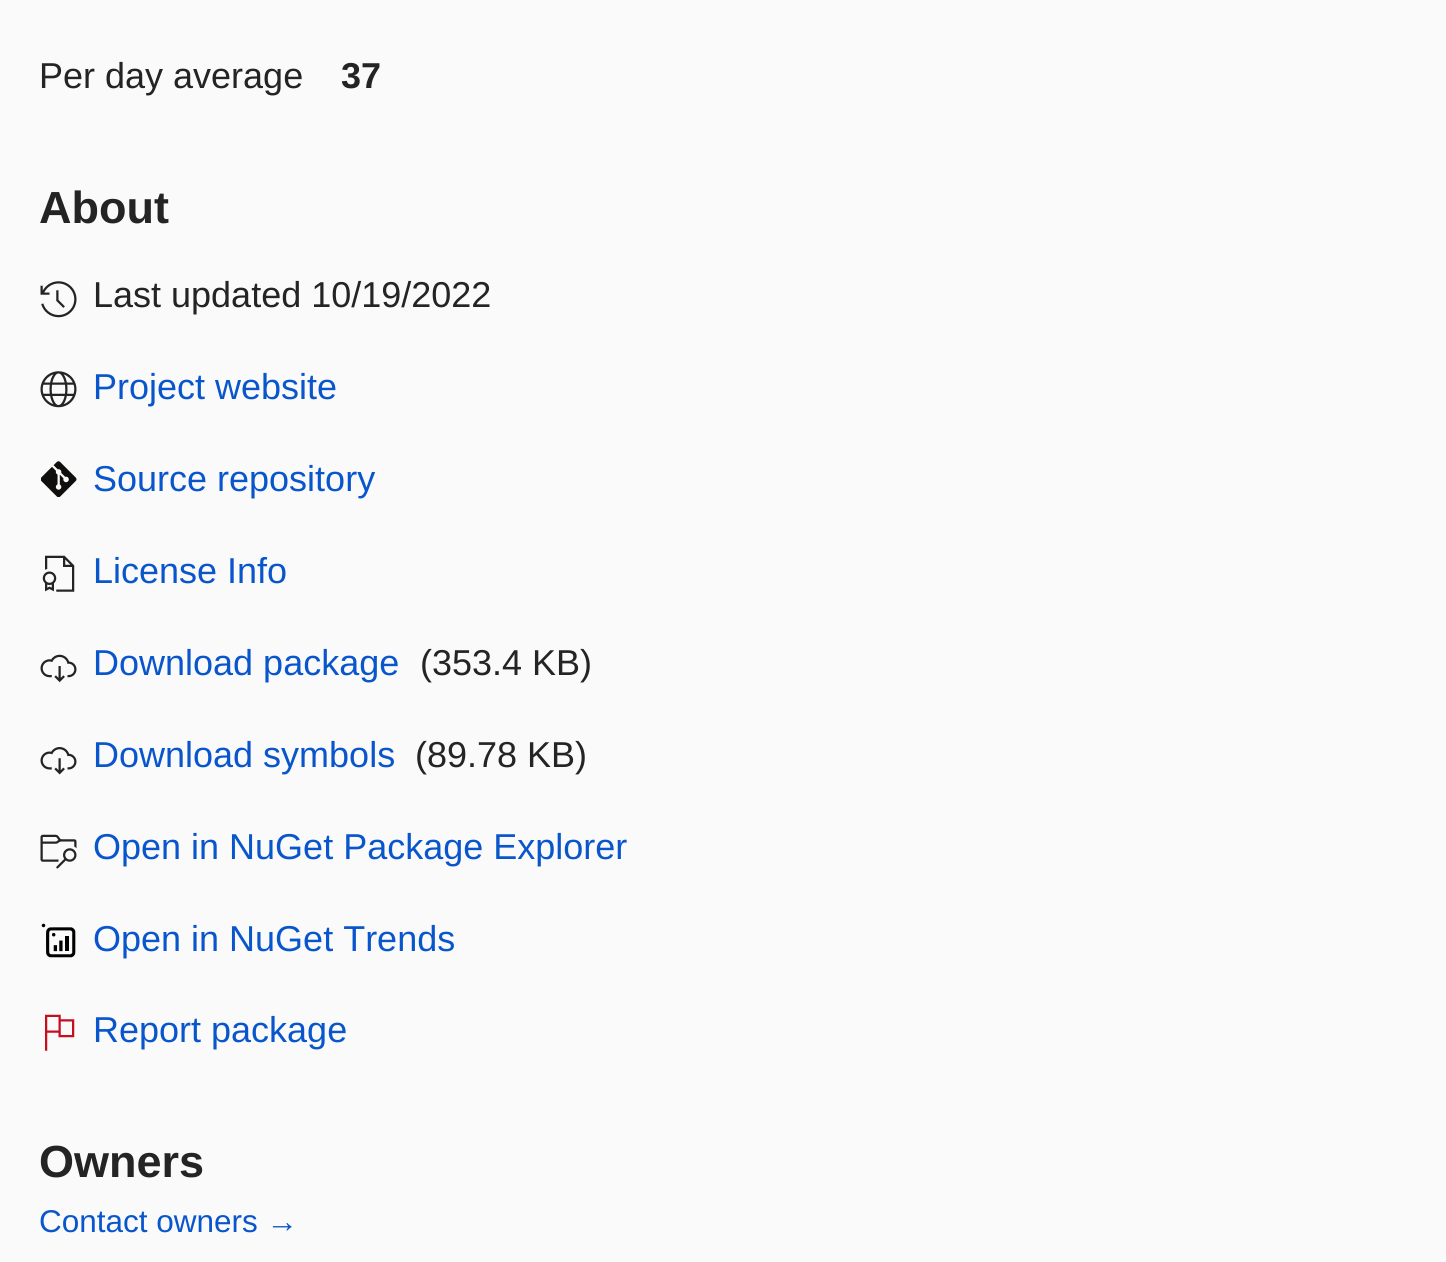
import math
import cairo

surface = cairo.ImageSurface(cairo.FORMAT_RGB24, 1446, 1262)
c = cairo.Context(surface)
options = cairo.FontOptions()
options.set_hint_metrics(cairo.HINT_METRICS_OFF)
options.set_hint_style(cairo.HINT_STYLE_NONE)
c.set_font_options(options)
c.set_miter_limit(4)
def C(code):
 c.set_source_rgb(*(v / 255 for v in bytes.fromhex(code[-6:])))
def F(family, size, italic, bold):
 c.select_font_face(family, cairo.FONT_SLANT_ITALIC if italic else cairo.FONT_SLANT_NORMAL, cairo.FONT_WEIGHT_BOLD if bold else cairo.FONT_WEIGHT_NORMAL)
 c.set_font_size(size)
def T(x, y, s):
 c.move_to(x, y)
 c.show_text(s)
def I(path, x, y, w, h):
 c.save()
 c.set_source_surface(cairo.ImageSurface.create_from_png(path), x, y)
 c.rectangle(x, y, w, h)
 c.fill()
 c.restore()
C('fafafa')
c.paint()
F('Liberation Sans',36,0,0)
C('242424')
T(39,88,'Per day average')
F('Liberation Sans',36,0,1)
T(341,88,'37')
F('Liberation Sans',45,0,1)
T(39,223,'About')
I('1.png',40,281,37,37)
F('Liberation Sans',36,0,0)
T(93,307,'Last updated 10/19/2022')
I('2.png',40,371,37,37)
C('0956cc')
T(93,399,'Project website')
I('3.png',41,461,36,36)
T(93,491,'Source repository')
I('4.png',42,555,33,37)
T(93,583,'License Info')
I('5.png',40,654,37,29)
T(93,675,'Download package')
C('242424')
T(420,675,'(353.4 KB)')
I('6.png',40,747,37,28)
C('0956cc')
T(93,767,'Download symbols')
C('242424')
T(415,767,'(89.78 KB)')
I('7.png',40,834,37,35)
C('0956cc')
T(93,859,'Open in NuGet Package Explorer')
I('8.png',41,923,35,35)
T(93,951,'Open in NuGet Trends')
I('9.png',45,1014,30,37)
T(93,1042,'Report package')
F('Liberation Sans',45,0,1)
C('242424')
T(39,1177,'Owners')
F('Liberation Sans',31.5,0,0)
C('0956cc')
T(39,1232,'Contact owners →')
surface.write_to_png('o.png')
